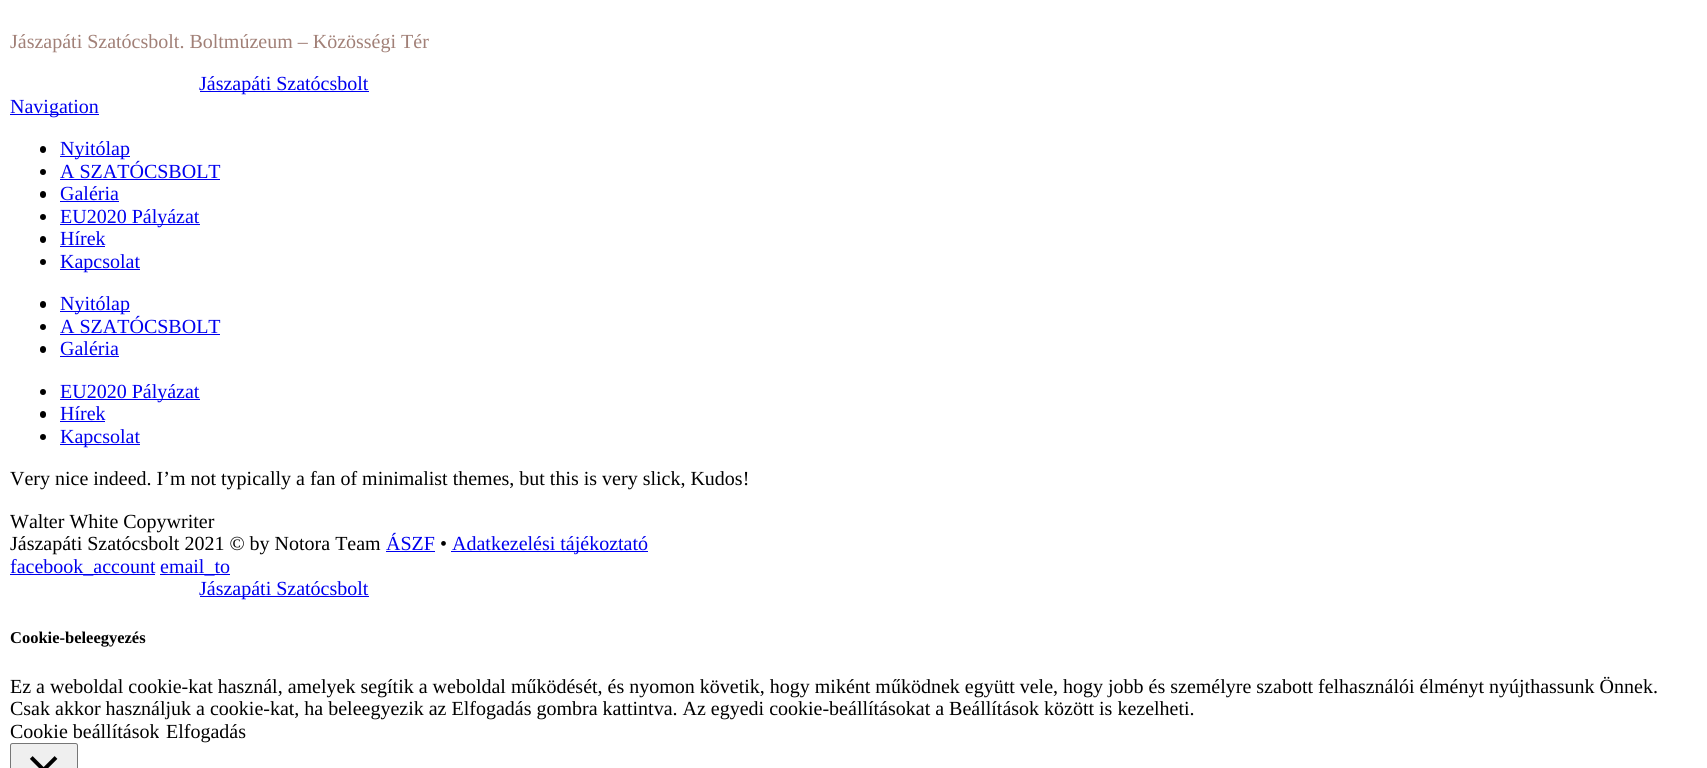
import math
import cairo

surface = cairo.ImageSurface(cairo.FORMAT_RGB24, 1707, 768)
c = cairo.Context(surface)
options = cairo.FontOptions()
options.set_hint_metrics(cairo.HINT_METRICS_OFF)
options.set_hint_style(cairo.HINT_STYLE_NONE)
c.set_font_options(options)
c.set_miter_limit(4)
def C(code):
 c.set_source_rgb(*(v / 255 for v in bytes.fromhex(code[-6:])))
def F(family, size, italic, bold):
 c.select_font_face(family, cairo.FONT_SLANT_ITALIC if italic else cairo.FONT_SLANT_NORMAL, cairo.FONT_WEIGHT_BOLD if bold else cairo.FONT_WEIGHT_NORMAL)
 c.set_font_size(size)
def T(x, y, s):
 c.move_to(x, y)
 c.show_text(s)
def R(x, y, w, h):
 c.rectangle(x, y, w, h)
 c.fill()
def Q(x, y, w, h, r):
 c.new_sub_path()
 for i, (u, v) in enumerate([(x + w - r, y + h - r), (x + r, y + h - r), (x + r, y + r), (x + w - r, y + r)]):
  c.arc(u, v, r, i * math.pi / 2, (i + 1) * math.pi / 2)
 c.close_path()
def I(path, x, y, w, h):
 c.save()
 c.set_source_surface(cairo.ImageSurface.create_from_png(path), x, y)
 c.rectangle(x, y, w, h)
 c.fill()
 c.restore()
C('ffffff')
c.paint()
F('Liberation Serif',20,0,0)
C('a18077')
T(10,48,'Jászapáti Szatócsbolt. Boltmúzeum – Közösségi Tér')
C('0000ee')
R(200,91,169,1)
T(199,90,'Jászapáti Szatócsbolt')
R(10,114,89,1)
T(10,113,'Navigation')
C('000000')
Q(40,146,6,7,3)
c.fill()
C('0000ee')
R(60,156,70,1)
T(60,155,'Nyitólap')
C('000000')
c.new_path()
c.arc(43,172,3,0,2 * math.pi)
c.fill()
C('0000ee')
T(60,178,'A SZATÓCSBOLT')
R(60,179,160,1)
C('000000')
Q(40,191,6,7,3)
c.fill()
C('0000ee')
T(60,200,'Galéria')
R(60,201,59,1)
C('000000')
c.new_path()
c.arc(43,217,3,0,2 * math.pi)
c.fill()
C('0000ee')
R(60,224,140,1)
T(60,223,'EU2020 Pályázat')
C('000000')
Q(40,236,6,7,3)
c.fill()
C('0000ee')
T(60,245,'Hírek')
R(60,246,45,1)
C('000000')
c.new_path()
c.arc(43,262,3,0,2 * math.pi)
c.fill()
C('0000ee')
R(60,269,80,1)
T(60,268,'Kapcsolat')
C('000000')
Q(40,301,6,7,3)
c.fill()
C('0000ee')
R(60,311,70,1)
T(60,310,'Nyitólap')
C('000000')
c.new_path()
c.arc(43,327,3,0,2 * math.pi)
c.fill()
C('0000ee')
T(60,333,'A SZATÓCSBOLT')
R(60,334,160,1)
C('000000')
Q(40,346,6,7,3)
c.fill()
C('0000ee')
T(60,355,'Galéria')
R(60,356,59,1)
C('000000')
c.new_path()
c.arc(43,392,3,0,2 * math.pi)
c.fill()
C('0000ee')
R(60,399,140,1)
T(60,398,'EU2020 Pályázat')
C('000000')
Q(40,411,6,7,3)
c.fill()
C('0000ee')
T(60,420,'Hírek')
R(60,421,45,1)
C('000000')
c.new_path()
c.arc(43,437,3,0,2 * math.pi)
c.fill()
C('0000ee')
R(60,444,80,1)
T(60,443,'Kapcsolat')
C('000000')
T(10,485,'Very nice indeed. I’m not typically a fan of minimalist themes, but this is very slick, Kudos!')
T(10,528,'Walter White Copywriter')
T(10,550,'Jászapáti Szatócsbolt 2021 © by Notora Team')
C('0000ee')
T(386,550,'ÁSZF')
R(386,551,49,1)
C('000000')
T(440,550,'•')
C('0000ee')
R(451,551,197,1)
T(452,550,'Adatkezelési tájékoztató')
R(10,574,145,1)
T(10,573,'facebook_account')
R(160,574,70,1)
T(160,573,'email_to')
R(200,596,169,1)
T(199,595,'Jászapáti Szatócsbolt')
F('Liberation Serif',16.5,0,1)
C('000000')
T(10,643,'Cookie-beleegyezés')
F('Liberation Serif',20,0,0)
T(10,693,'Ez a weboldal cookie-kat használ, amelyek segítik a weboldal működését, és nyomon követik, hogy miként működnek együtt vele, hogy jobb és személyre szabott felhasználói élményt nyújthassunk Önnek.')
T(10,715,'Csak akkor használjuk a cookie-kat, ha beleegyezik az Elfogadás gombra kattintva. Az egyedi cookie-beállításokat a Beállítások között is kezelheti.')
T(10,738,'Cookie beállítások')
T(166,738,'Elfogadás')
C('efefef')
Q(10.5,743.5,67,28,2)
c.fill_preserve()
C('767676')
c.set_line_width(1)
c.stroke()
I('1.png',29,756,29,12)
surface.write_to_png('o.png')
